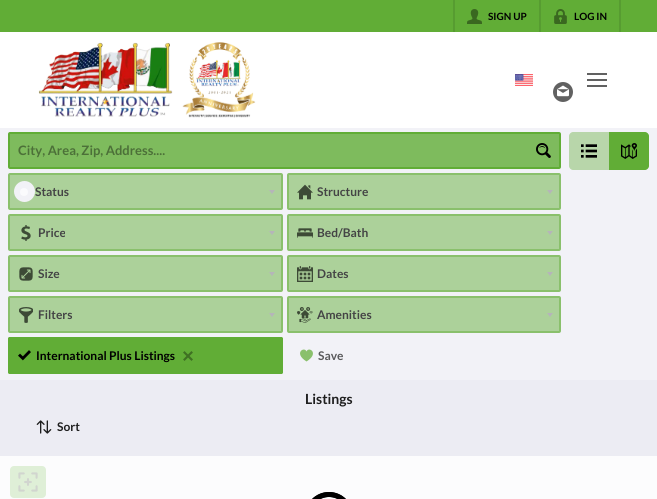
import math
import cairo

surface = cairo.ImageSurface(cairo.FORMAT_RGB24, 657, 499)
c = cairo.Context(surface)
options = cairo.FontOptions()
options.set_hint_metrics(cairo.HINT_METRICS_OFF)
options.set_hint_style(cairo.HINT_STYLE_NONE)
c.set_font_options(options)
c.set_miter_limit(4)
def C(code):
 c.set_source_rgb(*(v / 255 for v in bytes.fromhex(code[-6:])))
def F(family, size, italic, bold):
 c.select_font_face(family, cairo.FONT_SLANT_ITALIC if italic else cairo.FONT_SLANT_NORMAL, cairo.FONT_WEIGHT_BOLD if bold else cairo.FONT_WEIGHT_NORMAL)
 c.set_font_size(size)
def T(x, y, s):
 c.move_to(x, y)
 c.show_text(s)
def R(x, y, w, h):
 c.rectangle(x, y, w, h)
 c.fill()
def Q(x, y, w, h, r):
 c.new_sub_path()
 for i, (u, v) in enumerate([(x + w - r, y + h - r), (x + r, y + h - r), (x + r, y + r), (x + w - r, y + r)]):
  c.arc(u, v, r, i * math.pi / 2, (i + 1) * math.pi / 2)
 c.close_path()
def I(path, x, y, w, h):
 c.save()
 c.set_source_surface(cairo.ImageSurface.create_from_png(path), x, y)
 c.rectangle(x, y, w, h)
 c.fill()
 c.restore()
C('f2f2f7')
c.paint()
C('61ad36')
R(0,0,657,32)
C('579c31')
R(619,0,2,32)
R(453,0,2,32)
I('1.png',467,9,15,15)
F('Lato',10,0,1)
C('000000')
T(488,20,'SIGN UP')
C('579c31')
R(539,0,2,32)
I('2.png',554,9,13,15)
C('000000')
T(574,20,'LOG IN')
C('ffffff')
R(0,32,657,96)
I('3.png',38,42,218,76)
I('4.png',515,74,18,12)
C('616161')
R(587,73,20,2)
R(587,79,20,2)
R(587,85,20,2)
I('5.png',553,82,20,20)
C('fcfcfd')
R(0,456,657,43)
C('7ebb5d')
Q(9,133,551,35,1)
c.fill_preserve()
C('61ad36')
c.stroke()
F('Lato',13,0,1)
C('4c7038')
T(18,155,'City, Area, Zip, Address....')
I('6.png',536,143,15,15)
C('acd19a')
Q(9,174,273,35,1)
c.fill_preserve()
C('8ac06c')
c.stroke()
c.arc(24.5,191.5,5.5,0,2 * math.pi)
C('f2f2f7')
c.set_line_width(10)
c.stroke()
C('fbfbfd')
c.arc(24,192,4,0,2 * math.pi)
c.fill()
F('Lato',12,0,1)
C('444445')
T(35,196,'Status')
C('b5b5b9')
c.new_path()
c.move_to(269,190)
c.line_to(275,190)
c.line_to(272,194)
c.close_path()
c.fill()
C('acd19a')
Q(288,174,272,35,1)
c.fill_preserve()
C('8ac06c')
c.set_line_width(2)
c.stroke()
I('7.png',297,184,16,16)
C('444445')
T(317,196,'Structure')
C('b5b5b9')
c.new_path()
c.move_to(547,190)
c.line_to(553,190)
c.line_to(550,194)
c.close_path()
c.fill()
C('acd19a')
Q(9,215,273,35,1)
c.fill_preserve()
C('8ac06c')
c.stroke()
I('8.png',21,225,10,16)
C('444445')
T(38,237,'Price')
C('b5b5b9')
c.new_path()
c.move_to(269,231)
c.line_to(275,231)
c.line_to(272,235)
c.close_path()
c.fill()
C('acd19a')
Q(288,215,272,35,1)
c.fill_preserve()
C('8ac06c')
c.stroke()
I('9.png',297,228,16,10)
C('444445')
T(317,237,'Bed/Bath')
C('b5b5b9')
c.new_path()
c.move_to(547,231)
c.line_to(553,231)
c.line_to(550,235)
c.close_path()
c.fill()
C('acd19a')
Q(9,256,273,35,1)
c.fill_preserve()
C('8ac06c')
c.stroke()
I('10.png',19,267,14,14)
C('444445')
T(38,278,'Size')
C('b5b5b9')
c.new_path()
c.move_to(269,272)
c.line_to(275,272)
c.line_to(272,276)
c.close_path()
c.fill()
C('acd19a')
Q(288,256,272,35,1)
c.fill_preserve()
C('8ac06c')
c.stroke()
I('11.png',297,266,16,16)
C('444445')
T(317,278,'Dates')
C('b5b5b9')
c.new_path()
c.move_to(547,272)
c.line_to(553,272)
c.line_to(550,276)
c.close_path()
c.fill()
C('acd19a')
Q(9,297,273,35,1)
c.fill_preserve()
C('8ac06c')
c.stroke()
I('12.png',19,307,14,16)
C('444445')
T(38,319,'Filters')
C('b5b5b9')
c.new_path()
c.move_to(269,313)
c.line_to(275,313)
c.line_to(272,317)
c.close_path()
c.fill()
C('acd19a')
Q(288,297,272,35,1)
c.fill_preserve()
C('8ac06c')
c.stroke()
I('13.png',297,307,16,16)
C('444445')
T(317,319,'Amenities')
C('b5b5b9')
c.new_path()
c.move_to(547,313)
c.line_to(553,313)
c.line_to(550,317)
c.close_path()
c.fill()
C('61ad36')
Q(8,337,275,37,2)
c.fill()
c.set_source_rgba(0.38,0.678,0.212,0.67)
Q(9,338,273,35,1)
c.fill_preserve()
C('61ad36')
c.stroke()
I('14.png',18,350,13,11)
C('000000')
T(36,360,'International Plus Listings')
I('15.png',183,351,10,10)
C('8ac06c')
c.new_path()
c.move_to(306.5,351.5)
c.curve_to(304.5,346,293,353,306.5,361.5)
c.curve_to(320,353,308.5,346,306.5,351.5)
c.close_path()
c.fill()
C('59595b')
T(318,360,'Save')
C('b8d6aa')
c.new_path()
c.move_to(573,132)
c.line_to(609,132)
c.line_to(609,170)
c.line_to(573,170)
c.curve_to(571,170,569,168,569,166)
c.line_to(569,136)
c.curve_to(569,134,571,132,573,132)
c.close_path()
c.fill()
I('16.png',581,144,16,14)
C('61ad36')
c.new_path()
c.move_to(609,132)
c.line_to(645,132)
c.curve_to(647,132,649,134,649,136)
c.line_to(649,166)
c.curve_to(649,168,647,170,645,170)
c.line_to(609,170)
c.close_path()
c.fill()
I('17.png',621,143,16,16)
C('ececf3')
R(0,380,657,76)
F('Lato',14,0,1)
C('1e1e1e')
T(305,404,'Listings')
I('18.png',36,420,16,14)
F('Lato',12,0,1)
T(57,431,'Sort')
C('dfefd7')
Q(10,466,36,32,4)
c.fill()
I('19.png',18,472,20,20)
Q(307.5,494.5,43,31,21.5)
C('000000')
c.set_line_width(5)
c.stroke()
Q(307.5,494.5,43,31,21.5)
c.stroke()
surface.write_to_png('o.png')
